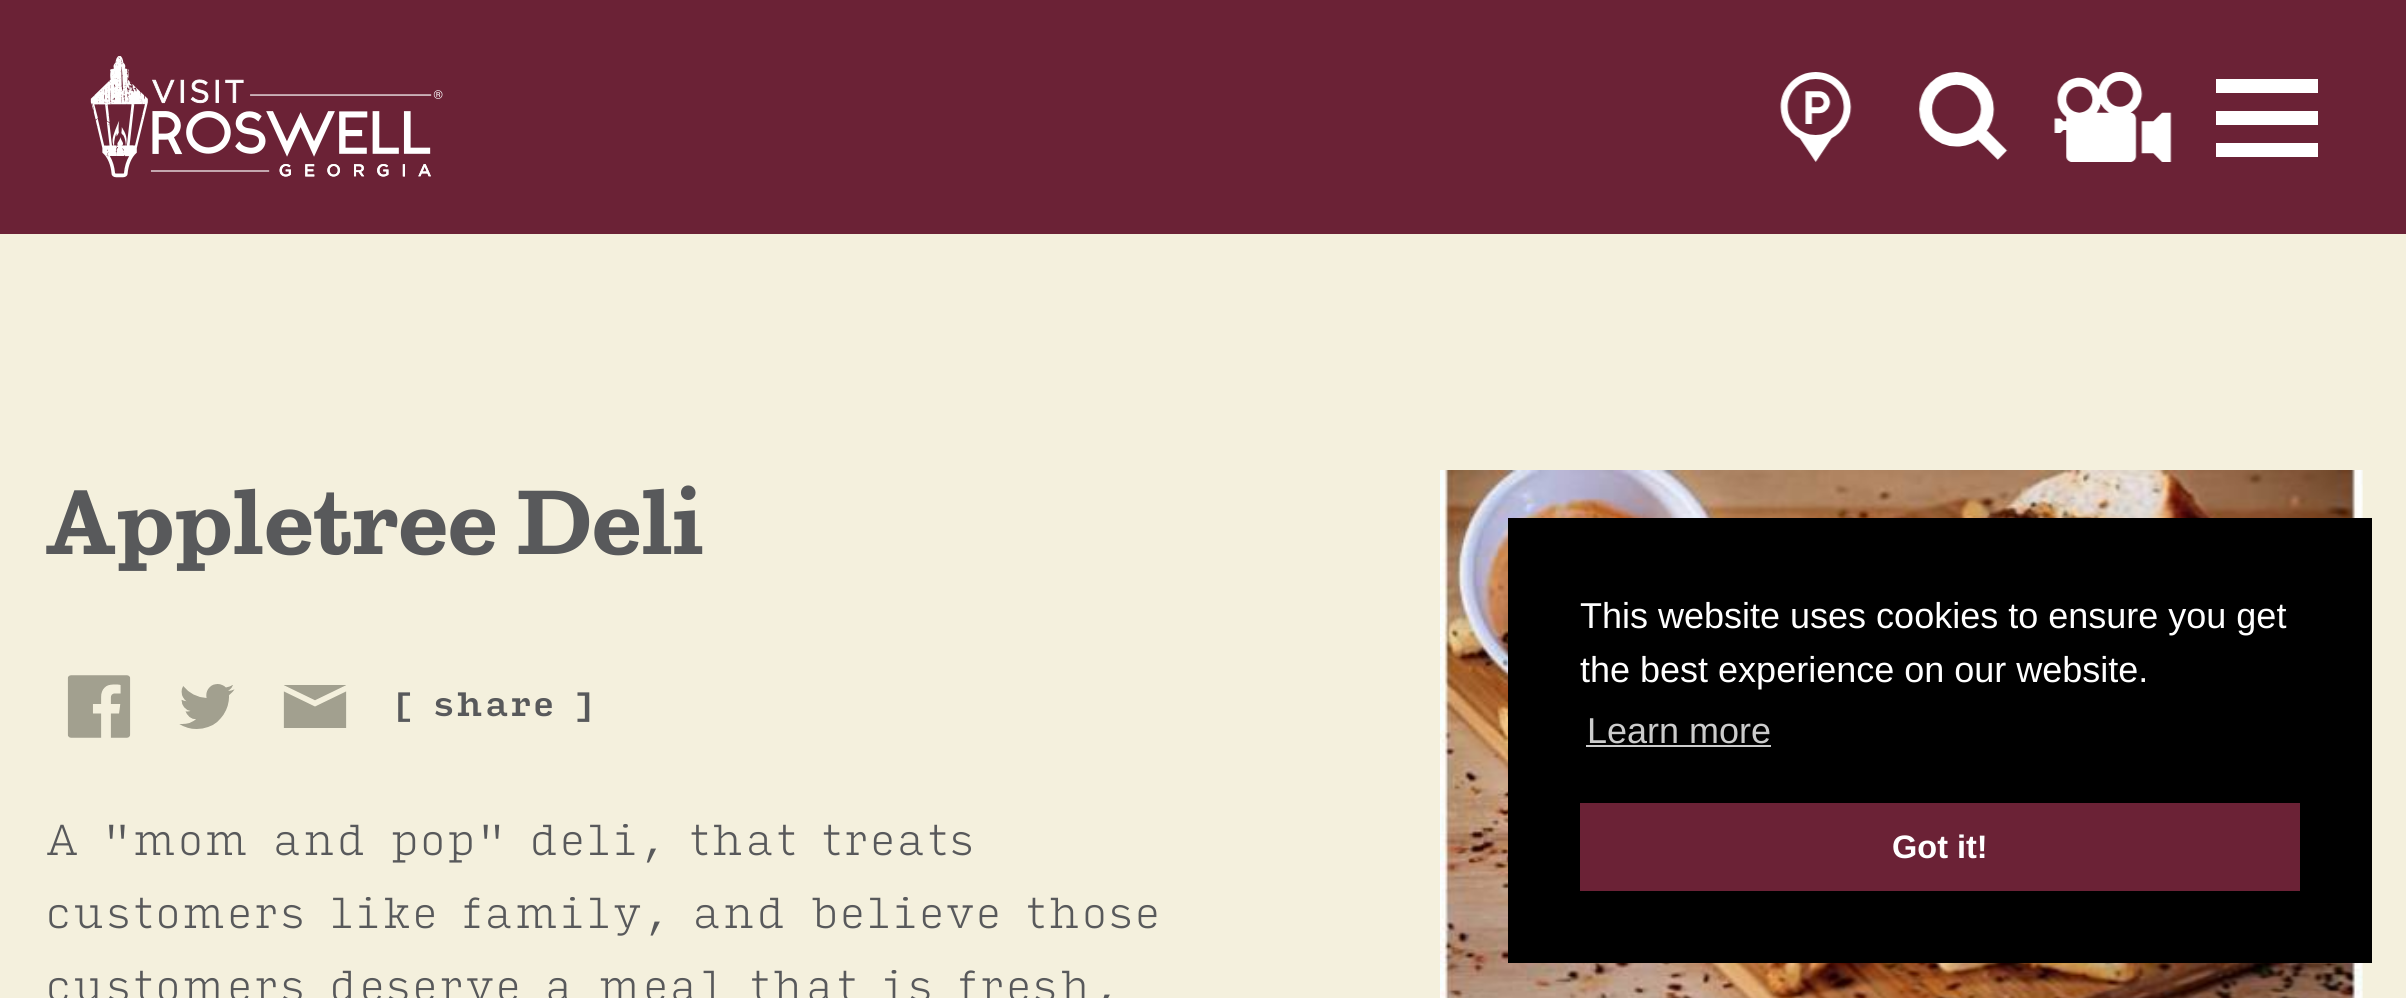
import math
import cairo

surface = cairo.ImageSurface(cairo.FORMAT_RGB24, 2406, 998)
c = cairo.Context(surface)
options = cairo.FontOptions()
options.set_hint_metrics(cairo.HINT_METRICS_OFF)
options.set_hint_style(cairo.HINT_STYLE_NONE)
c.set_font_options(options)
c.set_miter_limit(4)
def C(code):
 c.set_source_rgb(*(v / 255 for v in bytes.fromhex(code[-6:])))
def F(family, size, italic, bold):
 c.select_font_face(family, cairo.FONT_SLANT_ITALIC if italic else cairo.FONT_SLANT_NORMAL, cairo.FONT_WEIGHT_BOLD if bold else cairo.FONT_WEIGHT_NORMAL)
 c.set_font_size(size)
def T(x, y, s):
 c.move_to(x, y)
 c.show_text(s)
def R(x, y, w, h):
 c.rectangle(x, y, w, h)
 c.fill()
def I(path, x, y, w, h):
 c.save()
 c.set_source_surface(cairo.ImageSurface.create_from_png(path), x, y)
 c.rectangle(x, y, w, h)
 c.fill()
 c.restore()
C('f4f0dd')
c.paint()
C('6b2236')
R(0,0,2406,234)
I('1.png',90,56,353,122)
I('2.png',1780,72,72,90)
I('3.png',1919,72,89,88)
I('4.png',2054,72,118,90)
C('ffffff')
R(2216,79,102,14)
R(2216,111,102,14)
R(2216,143,102,14)
F('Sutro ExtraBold',90,0,0)
C('58595b')
T(45,554,'Appletree Deli')
I('5.png',67,675,64,63)
I('6.png',179,684,56,45)
I('7.png',283,685,64,43)
F('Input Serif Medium',32.5,0,0)
T(392,716,'[ share ]')
F('Input Serif ExtraLight',41.6,0,0)
T(45,855,'A "mom and pop" deli, that treats')
T(45,928,'customers like family, and believe those')
T(45,1001,'customers deserve a meal that is fresh,')
I('8.png',1440,470,923,528)
C('000000')
R(1508,518,864,445)
F('Liberation Sans',36,0,0)
C('ffffff')
T(1580,628,'This website uses cookies to ensure you get')
T(1580,682,'the best experience on our website.')
C('cccccc')
T(1587,743,'Learn more')
R(1586,745,185,2)
C('6b2236')
R(1580,803,720,88)
F('Liberation Sans',32.5,0,1)
C('ffffff')
T(1892,858,'Got it!')
surface.write_to_png('o.png')
